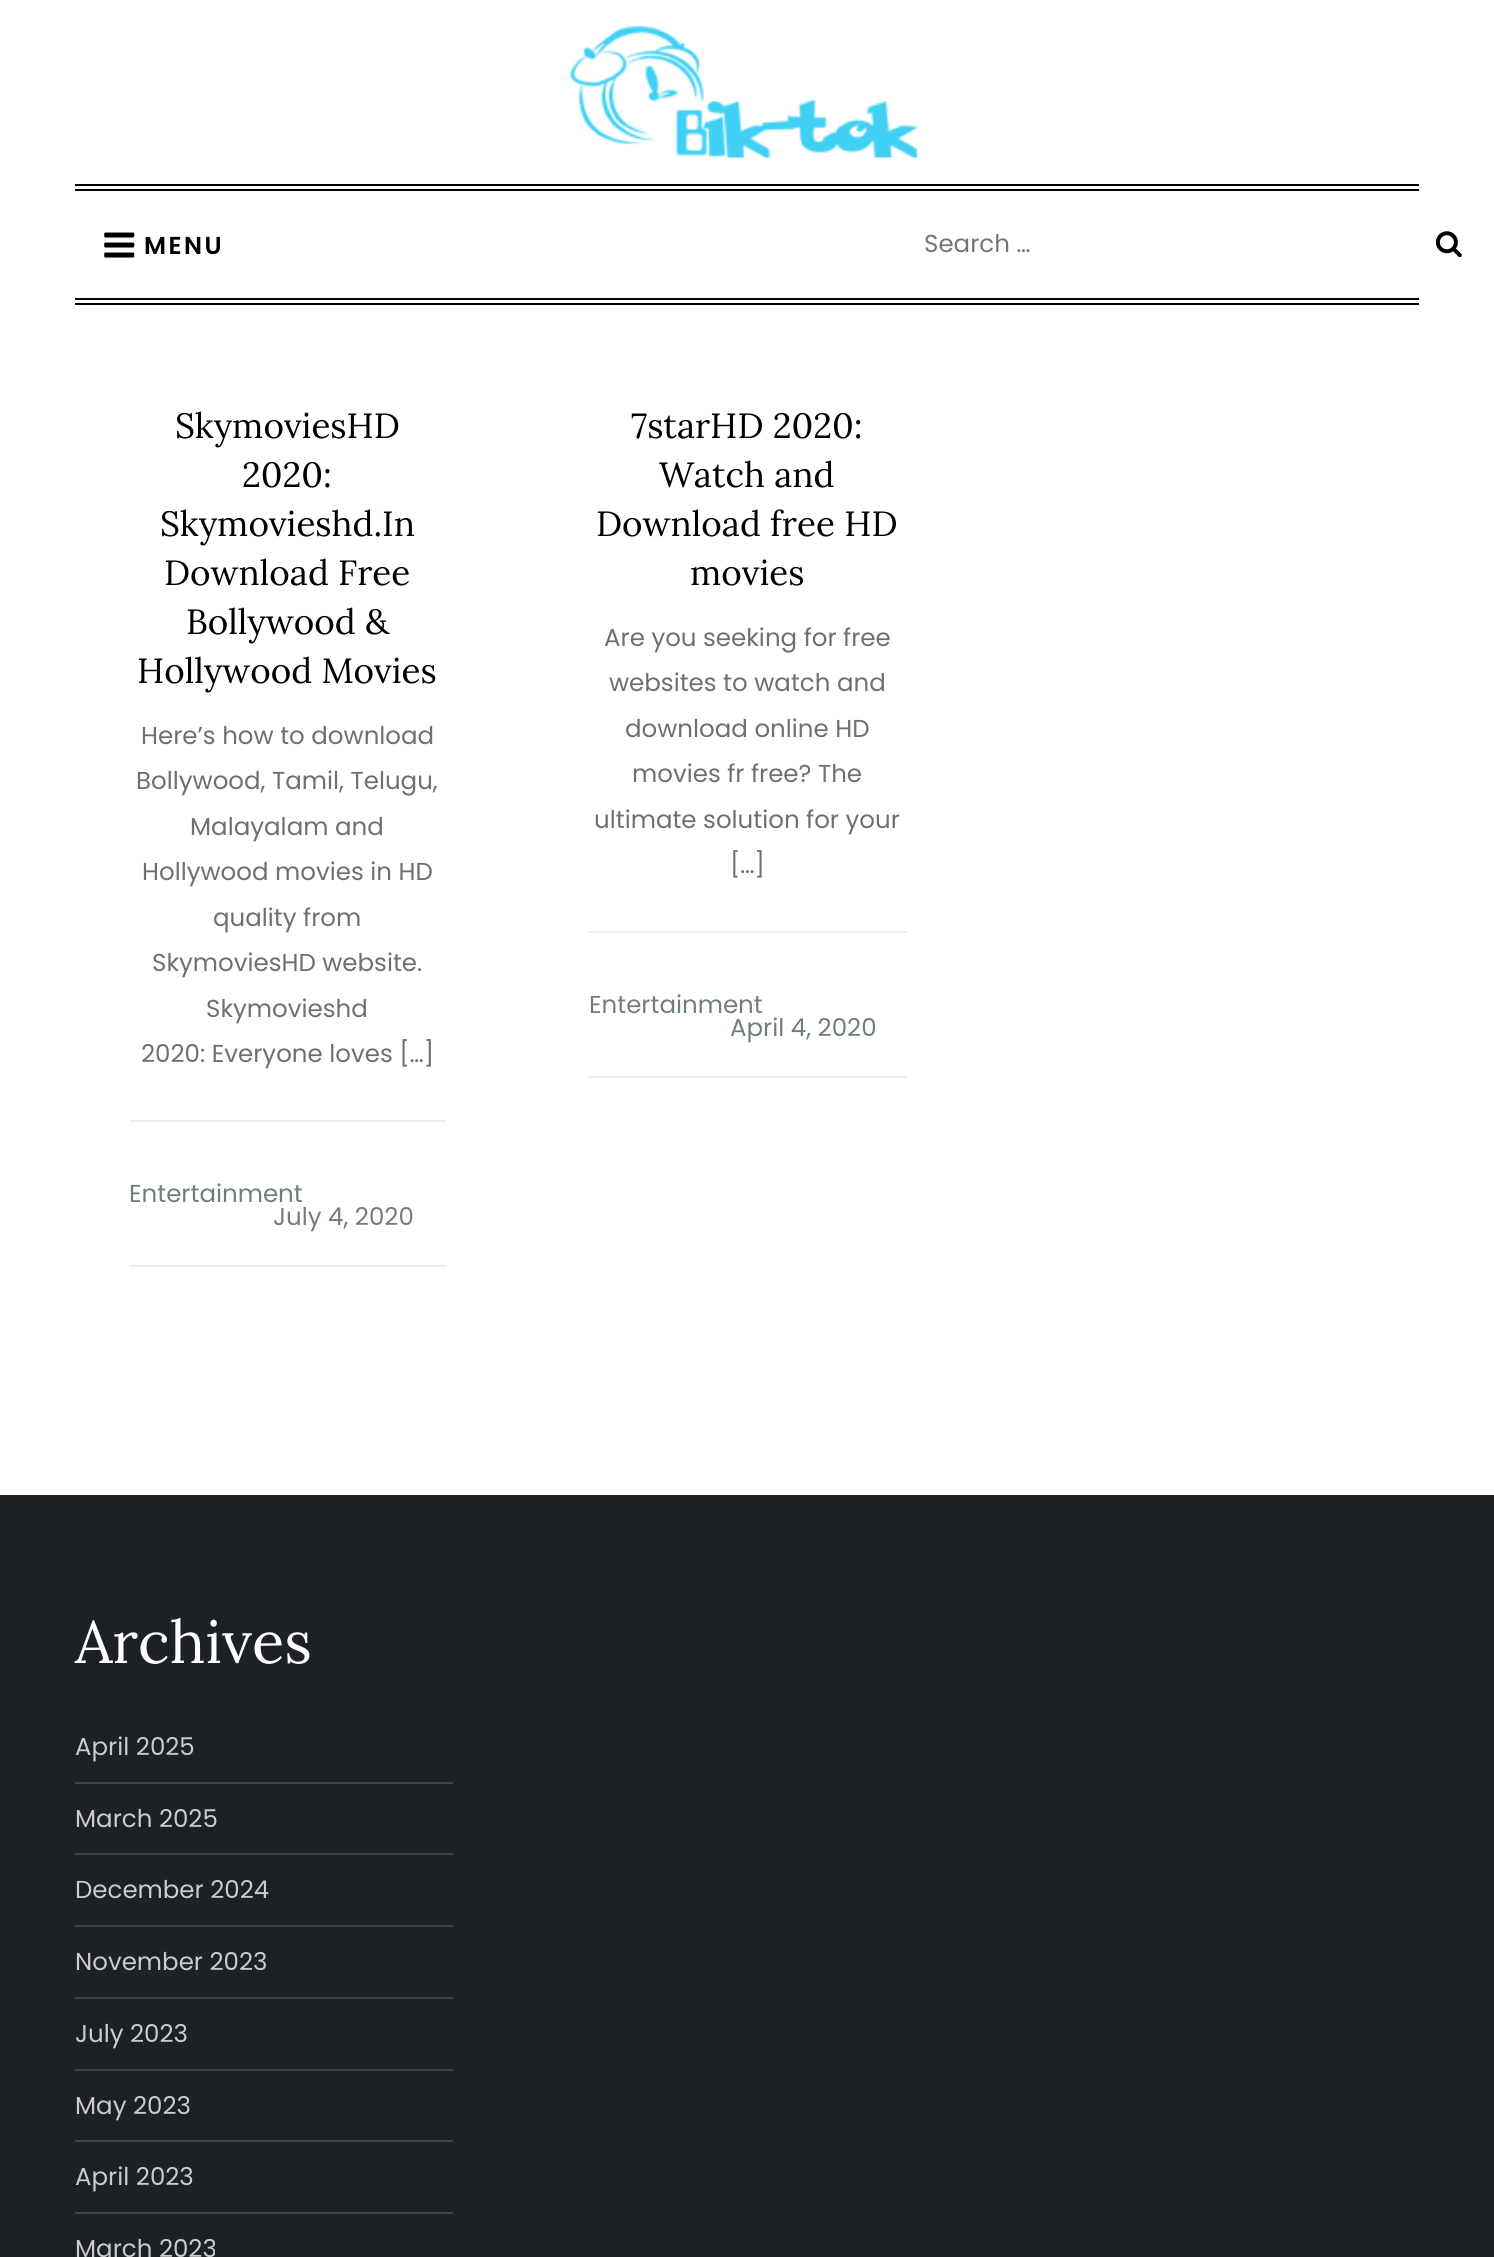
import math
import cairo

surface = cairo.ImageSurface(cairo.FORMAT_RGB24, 1494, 2257)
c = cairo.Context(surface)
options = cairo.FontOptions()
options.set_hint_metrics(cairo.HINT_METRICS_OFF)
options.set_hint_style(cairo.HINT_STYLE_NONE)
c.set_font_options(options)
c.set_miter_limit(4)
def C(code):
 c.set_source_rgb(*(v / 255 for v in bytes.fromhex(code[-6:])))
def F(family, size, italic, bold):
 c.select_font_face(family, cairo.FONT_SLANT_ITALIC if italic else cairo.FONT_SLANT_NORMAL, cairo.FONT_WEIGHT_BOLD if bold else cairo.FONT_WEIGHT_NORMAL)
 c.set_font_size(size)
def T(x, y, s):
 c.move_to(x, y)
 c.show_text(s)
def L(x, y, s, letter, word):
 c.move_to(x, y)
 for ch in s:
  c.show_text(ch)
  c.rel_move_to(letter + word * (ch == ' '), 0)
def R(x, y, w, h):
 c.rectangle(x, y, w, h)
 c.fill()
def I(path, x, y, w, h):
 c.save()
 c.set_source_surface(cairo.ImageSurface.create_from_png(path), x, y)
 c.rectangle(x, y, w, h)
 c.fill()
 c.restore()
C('ffffff')
c.paint()
I('1.png',570,26,348,132)
C('000000')
R(75,184,1344,2)
R(75,189,1344,2)
R(75,298,1344,2)
R(75,303,1344,2)
I('2.png',104,232,31,26)
F('Poppins SemiBold',24.5,0,0)
L(144,254,'MENU',2.5,0)
F('Poppins',24.5,0,0)
C('757575')
T(924,252,'Search …')
I('3.png',1435,231,27,26)
F('Lora',35,0,0)
C('000000')
T(175,438,'SkymoviesHD')
T(242,487,'2020:')
T(160,536,'Skymovieshd.In')
T(164,585,'Download Free')
T(186,634,'Bollywood &')
T(137,683,'Hollywood Movies')
F('Poppins',24.5,0,0)
C('6f6f6f')
T(141,744,'Here’s how to download')
T(136,789,'Bollywood, Tamil, Telugu,')
T(190,835,'Malayalam and')
T(142,880,'Hollywood movies in HD')
T(213,926,'quality from')
T(152,971,'SkymoviesHD website.')
T(206,1017,'Skymovieshd')
T(141,1062,'2020: Everyone loves […]')
C('eeeeee')
R(130,1120,316,2)
R(130,1265,316,2)
C('717e81')
T(129,1202,'Entertainment')
T(273,1225,'July 4, 2020')
F('Lora',35,0,0)
C('000000')
T(631,438,'7starHD 2020:')
T(659,487,'Watch and')
T(596,536,'Download free HD')
T(690,585,'movies')
F('Poppins',24.5,0,0)
C('6f6f6f')
T(604,646,'Are you seeking for free')
T(609,691,'websites to watch and')
T(625,737,'download online HD')
T(632,782,'movies fr free? The')
T(594,828,'ultimate solution for your')
T(730,873,'[…]')
C('eeeeee')
R(588,931,319,2)
R(588,1076,319,2)
C('717e81')
T(589,1013,'Entertainment')
T(730,1036,'April 4, 2020')
C('1d2024')
R(0,1495,1494,762)
F('Lora',59.5,0,0)
C('ffffff')
T(75,1663,'Archives')
C('3f4145')
R(75,1782,378,2)
F('Poppins',24.5,0,0)
C('cccccc')
T(75,1755,'April 2025')
C('3f4145')
R(75,1853,378,2)
C('cccccc')
T(75,1827,'March 2025')
C('3f4145')
R(75,1925,378,2)
C('cccccc')
T(75,1898,'December 2024')
C('3f4145')
R(75,1997,378,2)
C('cccccc')
T(75,1970,'November 2023')
C('3f4145')
R(75,2069,378,2)
C('cccccc')
T(75,2042,'July 2023')
C('3f4145')
R(75,2140,378,2)
C('cccccc')
T(75,2114,'May 2023')
C('3f4145')
R(75,2212,378,2)
C('cccccc')
T(75,2185,'April 2023')
T(75,2257,'March 2023')
surface.write_to_png('o.png')
